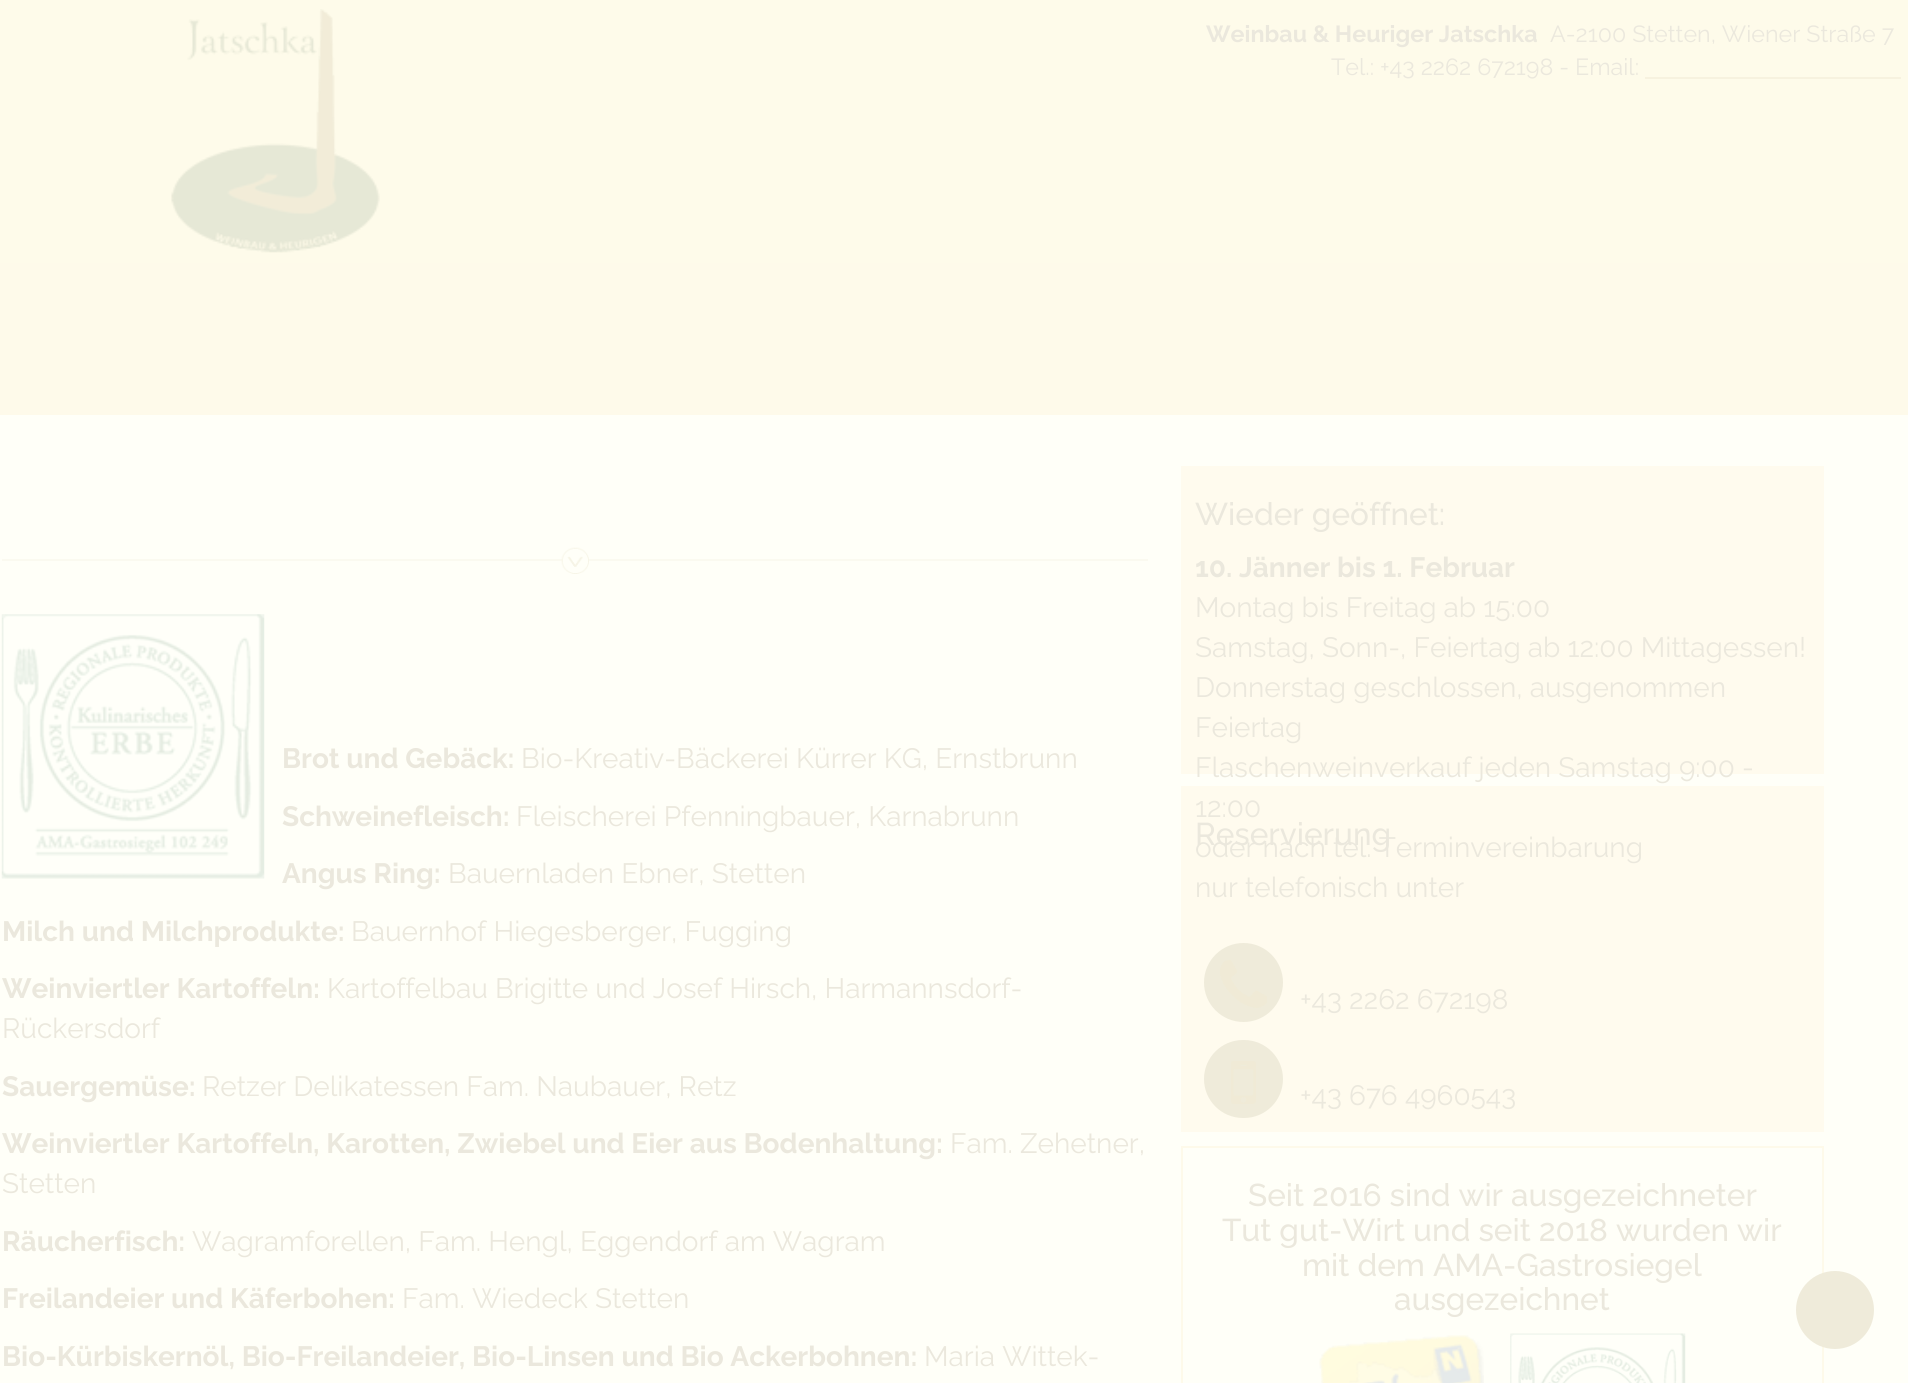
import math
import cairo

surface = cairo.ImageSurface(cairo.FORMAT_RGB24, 1908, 1383)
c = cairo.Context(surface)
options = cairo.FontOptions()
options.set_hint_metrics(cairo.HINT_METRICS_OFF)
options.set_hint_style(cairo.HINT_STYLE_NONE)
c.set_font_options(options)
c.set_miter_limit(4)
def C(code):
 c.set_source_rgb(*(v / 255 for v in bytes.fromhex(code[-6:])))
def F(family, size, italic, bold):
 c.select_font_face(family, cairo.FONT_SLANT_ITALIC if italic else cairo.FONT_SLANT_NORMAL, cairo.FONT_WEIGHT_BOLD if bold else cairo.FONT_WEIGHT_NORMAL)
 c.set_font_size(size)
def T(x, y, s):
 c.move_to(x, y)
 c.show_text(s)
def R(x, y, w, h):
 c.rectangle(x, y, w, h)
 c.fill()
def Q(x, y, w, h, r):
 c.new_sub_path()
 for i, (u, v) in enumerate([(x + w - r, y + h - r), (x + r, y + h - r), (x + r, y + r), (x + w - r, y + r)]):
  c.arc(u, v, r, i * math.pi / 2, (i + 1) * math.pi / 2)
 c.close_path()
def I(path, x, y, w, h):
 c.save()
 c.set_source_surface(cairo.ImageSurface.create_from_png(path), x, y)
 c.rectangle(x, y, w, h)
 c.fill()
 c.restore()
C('fffff8')
c.paint()
C('fefbea')
R(0,0,1908,263)
I('1.png',171,9,209,244)
F('Raleway',23.3,0,1)
C('ebe8dd')
T(1206,42,'Weinbau & Heuriger Jatschka')
F('Raleway Thin',23.3,0,0)
T(1550,42,'A-2100 Stetten, Wiener Straße 7')
T(1331,75,'Tel.: +43 2262 672198 - Email:')
C('f7f2df')
R(1645,77,256,2)
C('fefaea')
R(0,263,1908,152)
I('2.png',2,547,1146,27)
I('3.png',1,614,264,265)
F('Raleway',28,0,1)
C('ebe8dd')
T(282,768,'Brot und Gebäck:')
F('Raleway Thin',28,0,0)
T(521,768,'Bio-Kreativ-Bäckerei Kürrer KG, Ernstbrunn')
F('Raleway',28,0,1)
T(282,826,'Schweinefleisch:')
F('Raleway Thin',28,0,0)
T(516,826,'Fleischerei Pfenningbauer, Karnabrunn')
F('Raleway',28,0,1)
T(282,883,'Angus Ring:')
F('Raleway Thin',28,0,0)
T(448,883,'Bauernladen Ebner, Stetten')
F('Raleway',28,0,1)
T(2,941,'Milch und Milchprodukte:')
F('Raleway Thin',28,0,0)
T(351,941,'Bauernhof Hiegesberger, Fugging')
F('Raleway',28,0,1)
T(2,998,'Weinviertler Kartoffeln:')
F('Raleway Thin',28,0,0)
T(327,998,'Kartoffelbau Brigitte und Josef Hirsch, Harmannsdorf-')
T(2,1038,'Rückersdorf')
F('Raleway',28,0,1)
T(2,1096,'Sauergemüse:')
F('Raleway Thin',28,0,0)
T(202,1096,'Retzer Delikatessen Fam. Naubauer, Retz')
F('Raleway',28,0,1)
T(2,1153,'Weinviertler Kartoffeln, Karotten, Zwiebel und Eier aus Bodenhaltung:')
F('Raleway Thin',28,0,0)
T(950,1153,'Fam. Zehetner,')
T(2,1193,'Stetten')
F('Raleway',28,0,1)
T(2,1251,'Räucherfisch:')
F('Raleway Thin',28,0,0)
T(192,1251,'Wagramforellen, Fam. Hengl, Eggendorf am Wagram')
F('Raleway',28,0,1)
T(2,1308,'Freilandeier und Käferbohen:')
F('Raleway Thin',28,0,0)
T(402,1308,'Fam. Wiedeck Stetten')
F('Raleway',28,0,1)
T(2,1366,'Bio-Kürbiskernöl, Bio-Freilandeier, Bio-Linsen und Bio Ackerbohnen:')
F('Raleway Thin',28,0,0)
T(924,1366,'Maria Wittek-')
C('fffbee')
R(1181,466,643,308)
F('Raleway Medium',31.5,0,0)
C('ebe8dd')
T(1195,525,'Wieder geöffnet:')
F('Raleway',28,0,1)
T(1195,577,'10. Jänner bis 1. Februar')
F('Raleway Thin',28,0,0)
T(1195,617,'Montag bis Freitag ab 15:00')
T(1195,657,'Samstag, Sonn-, Feiertag ab 12:00 Mittagessen!')
T(1195,697,'Donnerstag geschlossen, ausgenommen')
T(1195,737,'Feiertag')
T(1195,777,'Flaschenweinverkauf jeden Samstag 9:00 -')
C('fffbee')
R(1181,786,643,346)
C('ebe8dd')
T(1195,817,'12:00')
T(1195,857,'oder nach tel. Terminvereinbarung')
F('Raleway Medium',31.5,0,0)
T(1195,845,'Reservierung')
F('Raleway Thin',28,0,0)
T(1195,897,'nur telefonisch unter')
C('efebda')
c.new_path()
c.arc(1243.5,982.5,39.5,0,2 * math.pi)
c.fill()
I('4.png',1220,960,47,48)
C('ebe8dd')
T(1300,1009,'+43 2262 672198')
C('efebda')
Q(1204,1040,79,78,39)
c.fill()
I('5.png',1231,1061,25,43)
C('ebe8dd')
T(1300,1105,'+43 676 4960543')
c.rectangle(1182,1147,641,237)
C('fefaea')
c.stroke()
F('Raleway Medium',31.5,0,0)
C('ebe8dd')
T(1248,1206,'Seit 2016 sind wir ausgezeichneter')
T(1222,1241,'Tut gut-Wirt und seit 2018 wurden wir')
T(1302,1276,'mit dem AMA-Gastrosiegel')
T(1394,1310,'ausgezeichnet')
I('6.png',1319,1335,165,48)
I('7.png',1510,1333,176,50)
C('efebda')
c.arc(1835,1310,39,0,2 * math.pi)
c.fill()
surface.write_to_png('o.png')
